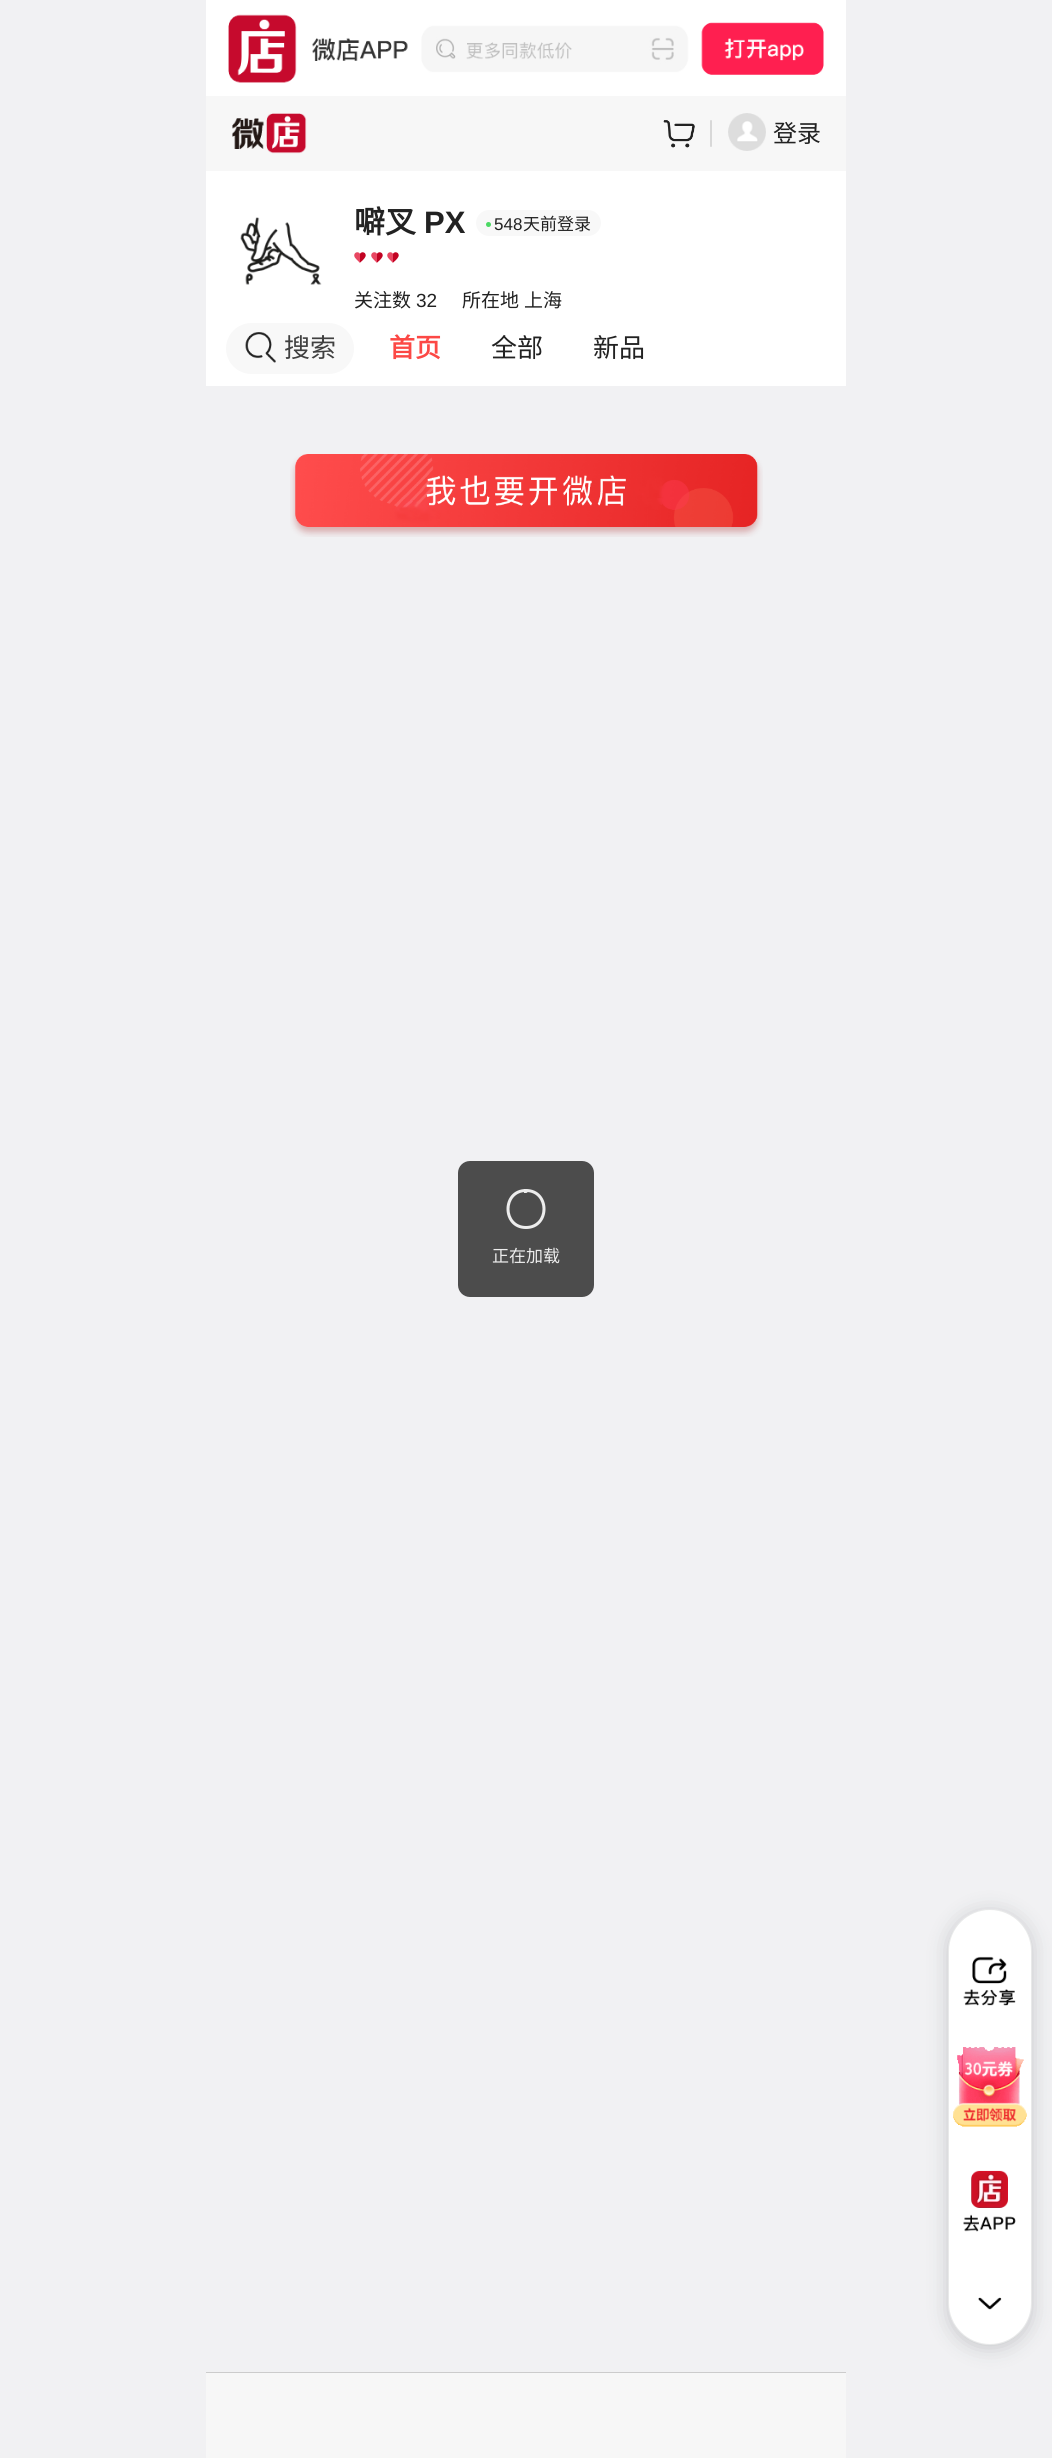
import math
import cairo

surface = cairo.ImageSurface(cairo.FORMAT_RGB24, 1052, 2458)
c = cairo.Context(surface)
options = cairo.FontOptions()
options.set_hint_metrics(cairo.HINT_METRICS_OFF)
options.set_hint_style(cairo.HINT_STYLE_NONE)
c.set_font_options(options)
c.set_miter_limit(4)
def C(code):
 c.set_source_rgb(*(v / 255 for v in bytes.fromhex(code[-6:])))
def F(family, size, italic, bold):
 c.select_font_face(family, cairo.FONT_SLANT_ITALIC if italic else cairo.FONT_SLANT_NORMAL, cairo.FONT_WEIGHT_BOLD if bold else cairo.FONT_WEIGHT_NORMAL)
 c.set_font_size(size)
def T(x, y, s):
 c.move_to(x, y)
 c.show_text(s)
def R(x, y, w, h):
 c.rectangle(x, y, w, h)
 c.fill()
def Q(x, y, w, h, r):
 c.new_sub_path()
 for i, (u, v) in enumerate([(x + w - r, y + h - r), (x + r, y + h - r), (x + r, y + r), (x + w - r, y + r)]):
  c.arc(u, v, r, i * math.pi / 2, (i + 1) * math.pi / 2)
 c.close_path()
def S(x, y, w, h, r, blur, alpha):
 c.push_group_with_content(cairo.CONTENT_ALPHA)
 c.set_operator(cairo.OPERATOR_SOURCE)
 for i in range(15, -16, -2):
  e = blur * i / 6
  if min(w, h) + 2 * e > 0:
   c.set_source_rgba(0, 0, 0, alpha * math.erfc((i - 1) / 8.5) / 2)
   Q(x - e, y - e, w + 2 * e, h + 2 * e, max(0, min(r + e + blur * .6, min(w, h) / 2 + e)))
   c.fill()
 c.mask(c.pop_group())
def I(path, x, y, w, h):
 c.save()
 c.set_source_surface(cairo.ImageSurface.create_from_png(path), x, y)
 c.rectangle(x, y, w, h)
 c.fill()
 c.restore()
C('f1f1f3')
c.paint()
C('ffffff')
R(206,171,640,215)
I('1.png',240,217,82,68)
F('Noto Sans CJK SC',31,0,1)
C('222222')
T(354,233,'噼叉')
F('Liberation Sans',31,0,1)
T(424,233,'PX')
C('f8f8f8')
Q(476,210,125,26,13)
c.fill()
C('4bd964')
c.arc(488.5,224.5,2.5,0,2 * math.pi)
c.fill()
F('Liberation Sans',17,0,0)
C('222222')
T(494,230,'548')
F('Noto Sans CJK SC',17,0,0)
T(523,230,'天前登录')
I('2.png',354,252,12,11)
I('2.png',371,252,12,11)
I('2.png',387,252,12,11)
F('Noto Sans CJK SC',19,0,0)
T(354,307,'关注数')
F('Liberation Sans',19,0,0)
T(416,307,'32')
F('Noto Sans CJK SC',19,0,0)
T(462,307,'所在地')
T(524,307,'上海')
C('f8f8f8')
Q(226,323,128,51,25.5)
c.fill()
I('3.png',245,332,31,31)
F('Noto Sans CJK SC',26,0,0)
C('404040')
T(284,357,'搜索')
F('Noto Sans CJK SC',26,0,1)
C('fc4845')
T(389,357,'首页')
F('Noto Sans CJK SC',26,0,0)
C('222222')
T(491,357,'全部')
T(593,357,'新品')
C('ffffff')
R(206,0,640,96)
I('4.png',228,14,596,69)
C('f7f7f7')
R(206,96,640,75)
I('5.png',232,113,75,41)
I('6.png',663,120,32,28)
C('d8d8d8')
Q(710,120,2,27,1)
c.fill()
I('7.png',728,113,38,38)
F('Noto Sans CJK SC',24,0,0)
C('222222')
T(773,142,'登录')
I('8.png',290,454,473,83)
C('1a2325')
S(948,1912,84,436,42,10,.2)
C('ffffff')
Q(948,1909,84,436,42)
c.fill()
Q(948.5,1909.5,83,435,41.5)
c.set_source_rgba(0.102,0.137,0.145,0.1)
c.set_line_width(1)
c.stroke()
I('9.png',963,1956,53,50)
I('10.png',953,2047,74,80)
I('11.png',963,2170,53,62)
I('12.png',978,2297,24,13)
C('4c4c4c')
Q(458,1161,136,136,12)
c.fill()
C('ededed')
c.set_fill_rule(cairo.FILL_RULE_EVEN_ODD)
c.new_path()
c.move_to(526,1189)
c.line_to(526,1229)
c.curve_to(500,1229,500,1189,526,1189)
c.close_path()
c.move_to(526,1192)
c.line_to(526,1226)
c.curve_to(504,1226,504,1192,526,1192)
c.close_path()
c.fill()
c.new_path()
c.move_to(524,1189)
c.line_to(526,1189)
c.curve_to(527,1189,528,1190,528,1191)
c.curve_to(528,1192,527,1193,526,1193)
c.line_to(524,1193)
c.close_path()
c.fill()
c.new_path()
c.move_to(526,1189)
c.curve_to(552,1189,552,1229,526,1229)
c.close_path()
c.move_to(526,1192)
c.curve_to(548,1192,548,1226,526,1226)
c.close_path()
c.fill()
F('Noto Sans CJK SC',17,0,0)
T(492,1262,'正在加载')
C('f7f7f7')
R(206,2373,640,85)
C('cccccc')
R(206,2372,640,1)
surface.write_to_png('o.png')
